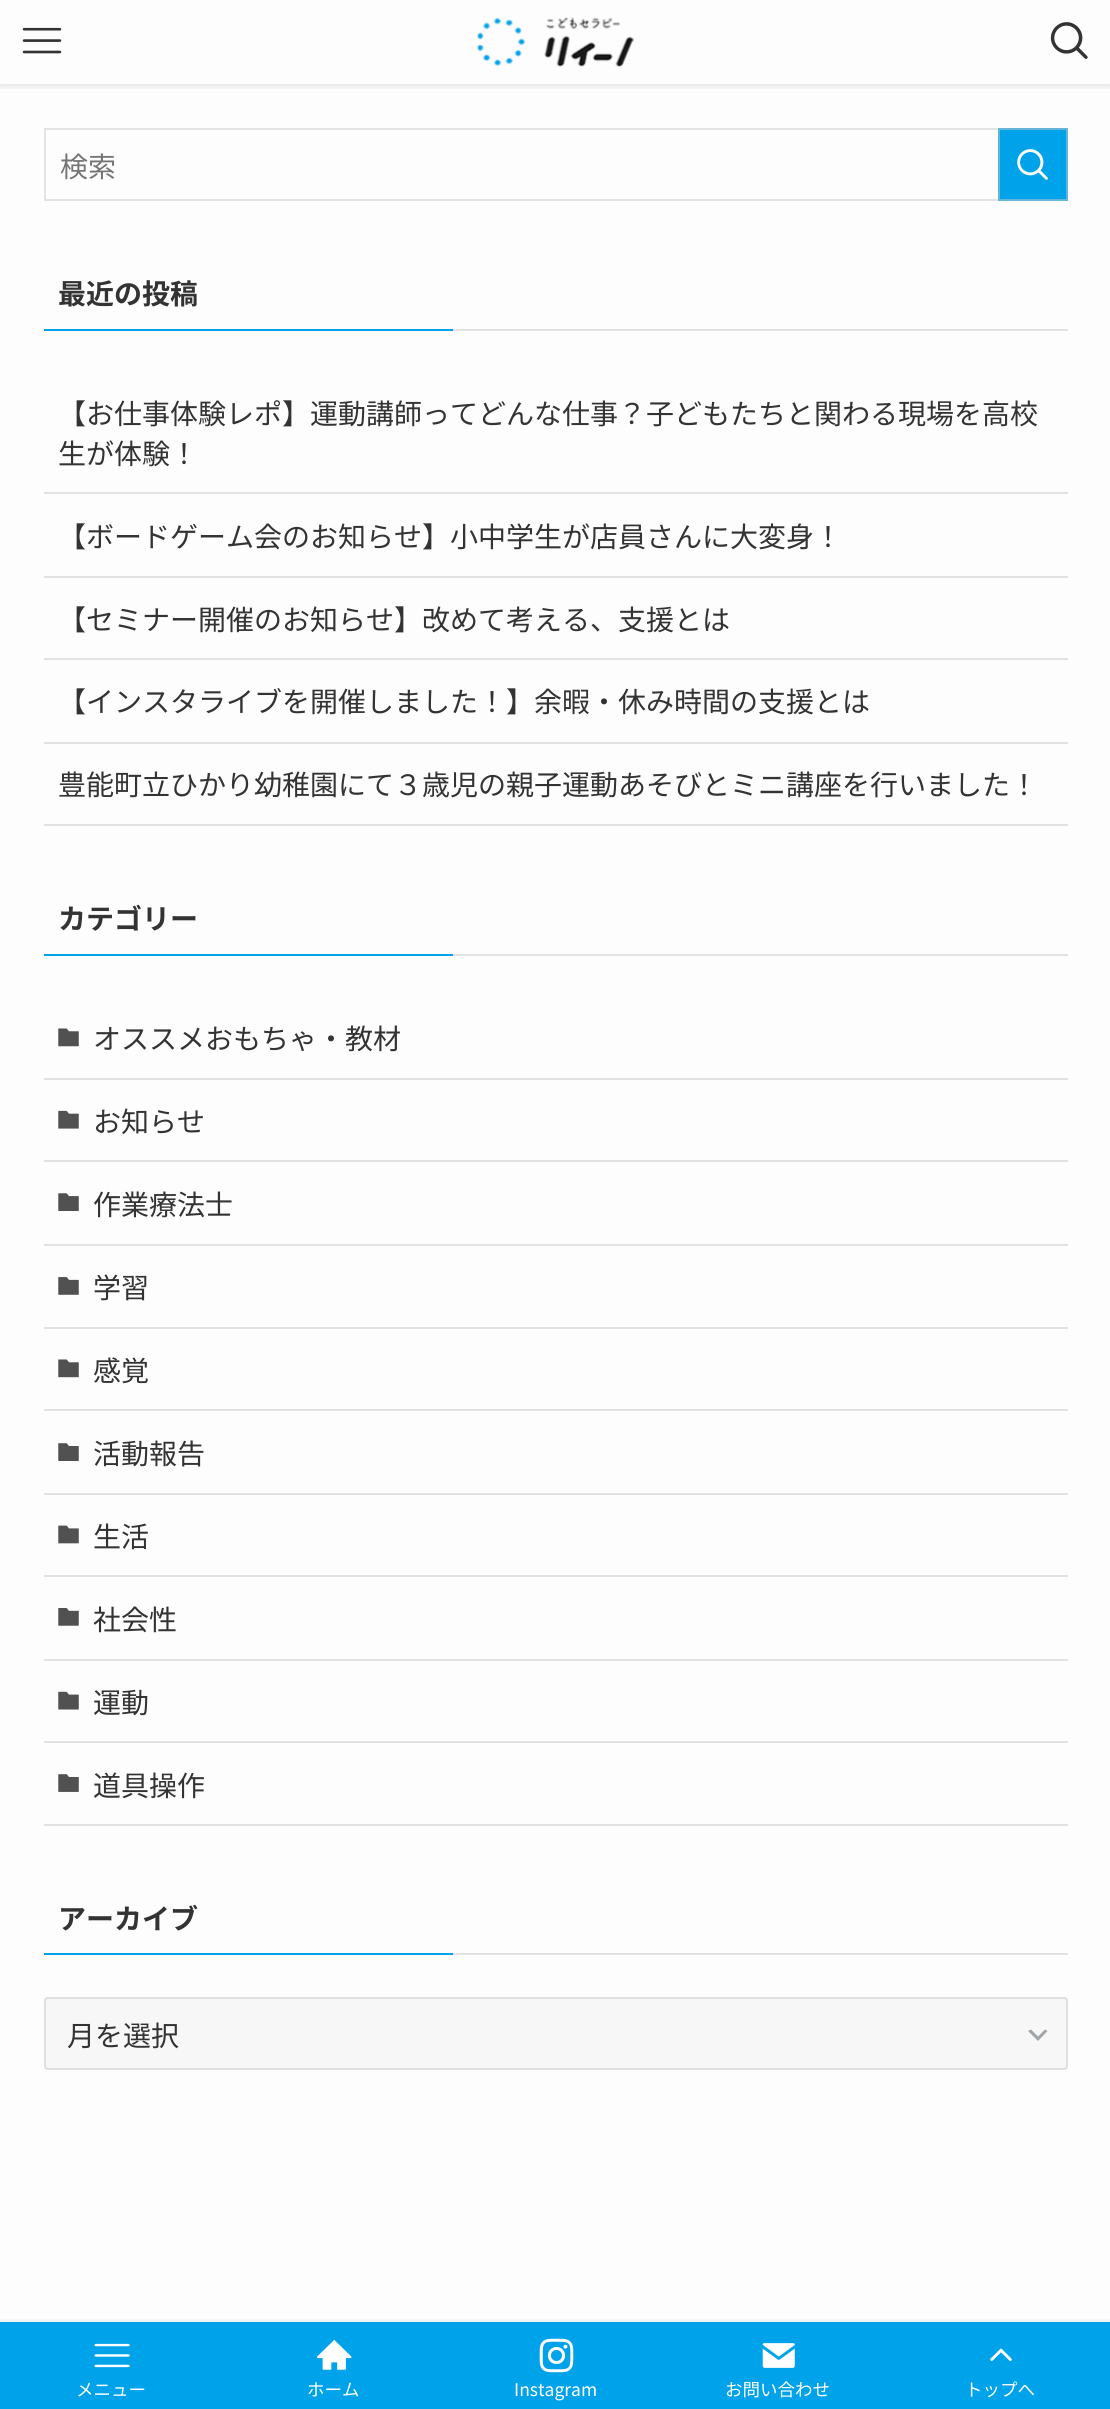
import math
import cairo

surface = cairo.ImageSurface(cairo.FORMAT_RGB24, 1110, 2409)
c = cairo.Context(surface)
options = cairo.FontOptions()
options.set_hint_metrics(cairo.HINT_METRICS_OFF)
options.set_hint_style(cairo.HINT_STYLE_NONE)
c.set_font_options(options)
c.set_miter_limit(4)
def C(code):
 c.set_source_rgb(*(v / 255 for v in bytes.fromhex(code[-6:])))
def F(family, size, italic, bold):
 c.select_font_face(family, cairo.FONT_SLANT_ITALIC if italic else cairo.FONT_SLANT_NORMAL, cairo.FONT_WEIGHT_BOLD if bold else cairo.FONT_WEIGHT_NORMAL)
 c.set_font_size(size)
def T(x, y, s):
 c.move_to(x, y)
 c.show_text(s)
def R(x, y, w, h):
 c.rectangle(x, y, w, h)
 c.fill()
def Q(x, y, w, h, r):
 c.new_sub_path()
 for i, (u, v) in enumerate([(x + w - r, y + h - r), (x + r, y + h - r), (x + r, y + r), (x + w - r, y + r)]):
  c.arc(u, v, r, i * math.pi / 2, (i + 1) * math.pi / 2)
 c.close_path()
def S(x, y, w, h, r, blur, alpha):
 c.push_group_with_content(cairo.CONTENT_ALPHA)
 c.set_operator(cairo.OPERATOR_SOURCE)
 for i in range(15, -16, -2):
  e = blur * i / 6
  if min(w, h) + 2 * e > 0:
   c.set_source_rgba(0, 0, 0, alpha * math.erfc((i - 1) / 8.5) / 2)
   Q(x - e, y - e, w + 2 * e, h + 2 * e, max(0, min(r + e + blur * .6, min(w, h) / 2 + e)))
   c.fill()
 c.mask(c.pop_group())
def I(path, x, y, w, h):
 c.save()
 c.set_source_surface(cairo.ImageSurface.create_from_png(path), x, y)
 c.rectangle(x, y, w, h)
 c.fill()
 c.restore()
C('fdfdfd')
c.paint()
c.save()
c.rectangle(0,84,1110,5)
c.clip()
C('000000')
S(0,2,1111,84,0,3.5,.12)
c.restore()
I('1.png',22,27,40,27)
I('2.png',477,17,157,50)
I('3.png',1050,22,38,37)
c.rectangle(45,129,1022,71)
C('e3e3e3')
c.stroke()
F('Noto Sans JP',28,0,0)
C('757575')
T(60,177,'検索')
C('00a2e9')
c.rectangle(999,129,68,71)
c.fill_preserve()
C('64b5d8')
c.stroke()
I('4.png',1017,149,31,31)
F('Noto Sans JP',28,0,1)
C('333333')
T(58,304,'最近の投稿')
C('00a2e9')
R(44,329,409,2)
C('e2e2e2')
R(453,329,615,2)
R(44,492,1024,2)
F('Noto Sans JP',28,0,0)
C('333333')
T(58,424,'【お仕事体験レポ】運動講師ってどんな仕事？子どもたちと関わる現場を高校')
T(58,464,'生が体験！')
C('e2e2e2')
R(44,576,1024,2)
C('333333')
T(58,547,'【ボードゲーム会のお知らせ】小中学生が店員さんに大変身！')
C('e2e2e2')
R(44,658,1024,2)
C('333333')
T(58,630,'【セミナー開催のお知らせ】改めて考える、支援とは')
C('e2e2e2')
R(44,742,1024,2)
C('333333')
T(58,712,'【インスタライブを開催しました！】余暇・休み時間の支援とは')
C('e2e2e2')
R(44,824,1024,2)
C('333333')
T(58,795,'豊能町立ひかり幼稚園にて３歳児の親子運動あそびとミニ講座を行いました！')
F('Noto Sans JP',28,0,1)
T(58,929,'カテゴリー')
C('00a2e9')
R(44,954,409,2)
C('e2e2e2')
R(453,954,615,2)
R(44,1078,1024,2)
I('5.png',58,1028,21,19)
F('Noto Sans JP',28,0,0)
C('333333')
T(93,1049,'オススメおもちゃ・教材')
C('e2e2e2')
R(44,1160,1024,2)
I('6.png',58,1110,21,19)
C('333333')
T(93,1132,'お知らせ')
C('e2e2e2')
R(44,1244,1024,2)
I('7.png',58,1193,21,18)
C('333333')
T(93,1215,'作業療法士')
C('e2e2e2')
R(44,1327,1024,2)
I('8.png',58,1277,21,18)
C('333333')
T(93,1298,'学習')
C('e2e2e2')
R(44,1409,1024,2)
I('9.png',58,1359,21,19)
C('333333')
T(93,1381,'感覚')
C('e2e2e2')
R(44,1493,1024,2)
I('10.png',58,1443,21,18)
C('333333')
T(93,1464,'活動報告')
C('e2e2e2')
R(44,1575,1024,2)
I('11.png',58,1525,21,19)
C('333333')
T(93,1547,'生活')
C('e2e2e2')
R(44,1659,1024,2)
I('12.png',58,1608,21,18)
C('333333')
T(93,1630,'社会性')
C('e2e2e2')
R(44,1741,1024,2)
I('13.png',58,1691,21,19)
C('333333')
T(93,1713,'運動')
C('e2e2e2')
R(44,1824,1024,2)
I('14.png',58,1774,21,18)
C('333333')
T(93,1796,'道具操作')
F('Noto Sans JP',28,0,1)
T(58,1929,'アーカイブ')
C('00a2e9')
R(44,1953,409,2)
C('e2e2e2')
R(453,1953,615,2)
C('f7f7f7')
Q(44,1997,1024,73,4)
c.fill()
C('a0a5aa')
c.new_path()
c.move_to(1031,2029.5)
c.line_to(1038,2036.5)
c.line_to(1045,2029.5)
c.line_to(1047.5,2031)
c.line_to(1038,2041)
c.line_to(1028,2031)
c.close_path()
c.fill()
Q(45,1998,1022,71,3)
C('dfdfdf')
c.stroke()
F('Noto Sans JP',28,0,0)
C('333333')
T(67,2046,'月を選択')
C('00a2e9')
R(0,2322,1110,87)
c.save()
c.rectangle(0,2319,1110,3)
c.clip()
C('000000')
S(0,2322,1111,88,0,3.5,.1)
c.restore()
c.set_source_rgba(0,0.635,0.914,0.9)
R(4,2322,1103,1)
I('15.png',94,2343,36,25)
F('Noto Sans JP',17.5,0,0)
C('ffffff')
T(76,2396,'メニュー')
I('16.png',317,2339,35,31)
T(307,2396,'ホーム')
I('17.png',539,2338,35,35)
T(514,2396,'Instagram')
I('18.png',762,2343,33,25)
T(725,2396,'お問い合わせ')
I('19.png',990,2348,22,13)
T(965,2396,'トップへ')
surface.write_to_png('o.png')
